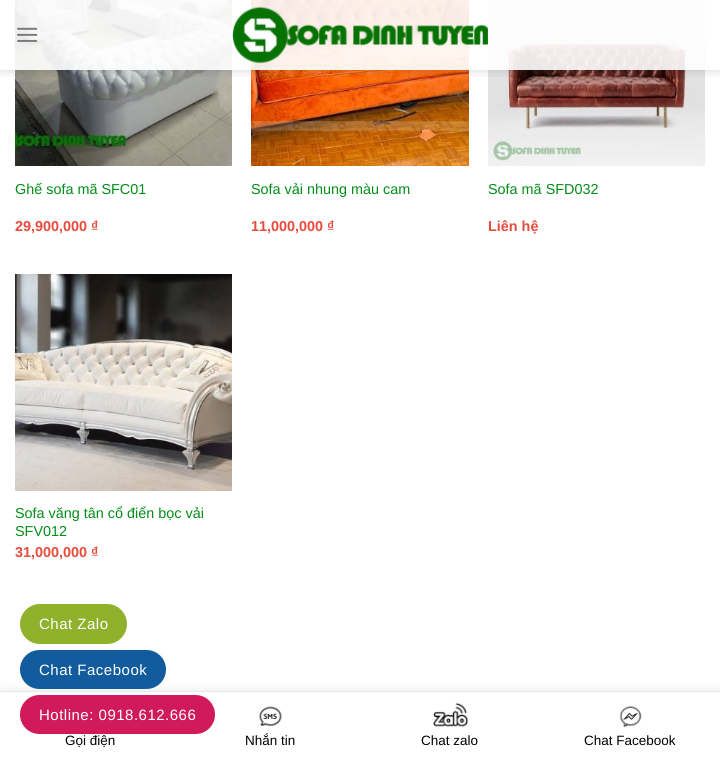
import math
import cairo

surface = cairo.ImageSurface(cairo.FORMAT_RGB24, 720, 760)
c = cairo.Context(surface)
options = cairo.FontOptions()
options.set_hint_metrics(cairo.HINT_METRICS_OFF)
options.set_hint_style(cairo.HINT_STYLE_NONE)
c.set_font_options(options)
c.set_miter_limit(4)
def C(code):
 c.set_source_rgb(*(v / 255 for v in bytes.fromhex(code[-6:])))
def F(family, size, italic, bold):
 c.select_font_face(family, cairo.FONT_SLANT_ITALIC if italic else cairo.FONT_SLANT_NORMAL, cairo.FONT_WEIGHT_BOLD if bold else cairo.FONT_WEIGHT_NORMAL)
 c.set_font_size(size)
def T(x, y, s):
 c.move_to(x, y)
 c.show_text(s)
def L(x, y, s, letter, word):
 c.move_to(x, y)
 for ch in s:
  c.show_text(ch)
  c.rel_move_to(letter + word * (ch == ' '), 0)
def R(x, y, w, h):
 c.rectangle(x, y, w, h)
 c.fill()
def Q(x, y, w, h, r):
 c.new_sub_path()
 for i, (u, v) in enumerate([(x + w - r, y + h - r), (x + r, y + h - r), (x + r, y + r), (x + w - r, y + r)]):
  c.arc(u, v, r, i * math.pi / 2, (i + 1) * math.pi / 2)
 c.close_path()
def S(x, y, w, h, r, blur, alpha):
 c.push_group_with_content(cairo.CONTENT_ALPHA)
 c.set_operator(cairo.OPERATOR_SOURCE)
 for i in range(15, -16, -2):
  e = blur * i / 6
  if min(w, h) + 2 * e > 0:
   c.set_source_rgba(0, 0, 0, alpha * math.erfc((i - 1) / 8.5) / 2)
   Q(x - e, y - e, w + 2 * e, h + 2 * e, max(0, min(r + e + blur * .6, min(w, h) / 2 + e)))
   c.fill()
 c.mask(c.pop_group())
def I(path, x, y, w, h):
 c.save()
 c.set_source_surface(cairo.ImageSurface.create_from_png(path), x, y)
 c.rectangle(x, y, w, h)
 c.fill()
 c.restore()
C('ffffff')
c.paint()
I('3.png',15,0,217,166)
I('4.png',251,0,218,166)
I('5.png',488,0,217,166)
c.save()
c.rectangle(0,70,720,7)
c.clip()
C('000000')
S(1,1,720,70,0,5,.15)
c.restore()
c.set_source_rgba(1,1,1,0.9)
R(15,0,690,70)
I('1.png',17,27,21,15)
I('2.png',232,6,256,58)
F('Liberation Sans',14.4,0,0)
C('028e17')
T(15,194,'Ghế sofa mã SFC01')
F('Liberation Sans',14.4,0,1)
C('e74c3c')
T(15,231,'29,900,000 ₫')
F('Liberation Sans',14.4,0,0)
C('028e17')
T(251,194,'Sofa vải nhung màu cam')
F('Liberation Sans',14.4,0,1)
C('e74c3c')
T(251,231,'11,000,000 ₫')
F('Liberation Sans',14.4,0,0)
C('028e17')
T(488,194,'Sofa mã SFD032')
F('Liberation Sans',14.4,0,1)
C('e74c3c')
T(488,231,'Liên hệ')
I('6.png',15,274,217,217)
F('Liberation Sans',14.4,0,0)
C('028e17')
T(15,518,'Sofa văng tân cổ điển bọc vải')
T(15,536,'SFV012')
F('Liberation Sans',14.4,0,1)
C('e74c3c')
T(15,557,'31,000,000 ₫')
C('8eb22b')
Q(20,604,107,40,20)
c.fill()
F('Liberation Sans',15,0,0)
C('ffffff')
L(39,629,'Chat Zalo',.5,0)
c.save()
c.rectangle(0,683,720,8)
c.clip()
C('dedede')
S(2,692,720,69,0,4.5,1)
c.restore()
C('125c9e')
Q(20,650,146,39,19.5)
c.fill()
C('ffffff')
L(39,675,'Chat Facebook',.5,0)
C('d11a59')
Q(20,695,195,39,19.5)
c.fill()
C('ffffff')
L(39,720,'Hotline: 0918.612.666',.5,0)
C('eaeaea')
R(0,691,720,1)
F('Liberation Sans',13.5,0,0)
C('000000')
T(65,745,'Gọi điện')
I('7.png',259,706,23,21)
T(245,745,'Nhắn tin')
I('8.png',433,703,35,24)
T(421,745,'Chat zalo')
I('9.png',620,706,22,22)
T(584,745,'Chat Facebook')
surface.write_to_png('o.png')
